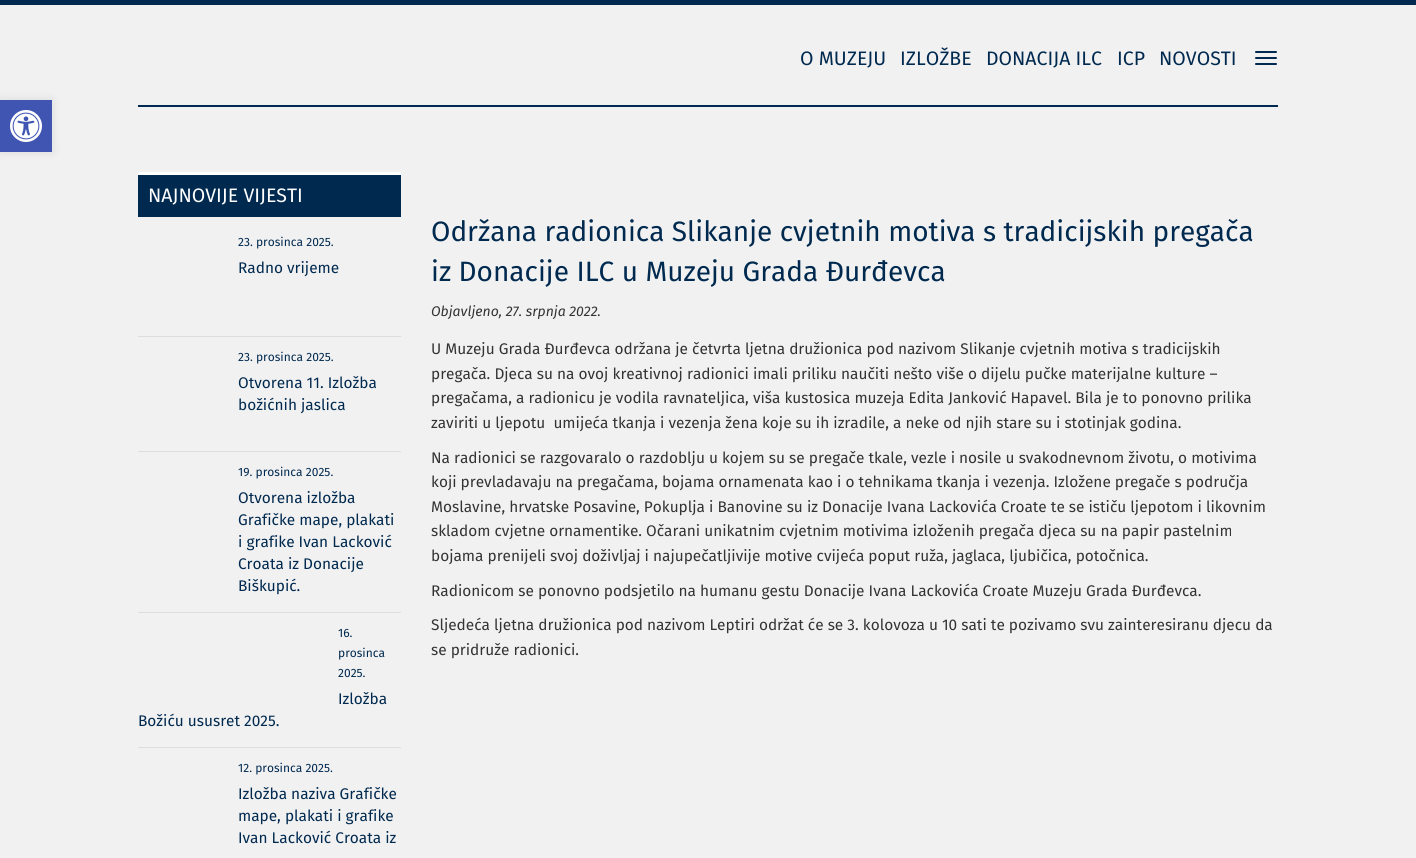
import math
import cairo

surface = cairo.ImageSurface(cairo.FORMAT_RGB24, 1416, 858)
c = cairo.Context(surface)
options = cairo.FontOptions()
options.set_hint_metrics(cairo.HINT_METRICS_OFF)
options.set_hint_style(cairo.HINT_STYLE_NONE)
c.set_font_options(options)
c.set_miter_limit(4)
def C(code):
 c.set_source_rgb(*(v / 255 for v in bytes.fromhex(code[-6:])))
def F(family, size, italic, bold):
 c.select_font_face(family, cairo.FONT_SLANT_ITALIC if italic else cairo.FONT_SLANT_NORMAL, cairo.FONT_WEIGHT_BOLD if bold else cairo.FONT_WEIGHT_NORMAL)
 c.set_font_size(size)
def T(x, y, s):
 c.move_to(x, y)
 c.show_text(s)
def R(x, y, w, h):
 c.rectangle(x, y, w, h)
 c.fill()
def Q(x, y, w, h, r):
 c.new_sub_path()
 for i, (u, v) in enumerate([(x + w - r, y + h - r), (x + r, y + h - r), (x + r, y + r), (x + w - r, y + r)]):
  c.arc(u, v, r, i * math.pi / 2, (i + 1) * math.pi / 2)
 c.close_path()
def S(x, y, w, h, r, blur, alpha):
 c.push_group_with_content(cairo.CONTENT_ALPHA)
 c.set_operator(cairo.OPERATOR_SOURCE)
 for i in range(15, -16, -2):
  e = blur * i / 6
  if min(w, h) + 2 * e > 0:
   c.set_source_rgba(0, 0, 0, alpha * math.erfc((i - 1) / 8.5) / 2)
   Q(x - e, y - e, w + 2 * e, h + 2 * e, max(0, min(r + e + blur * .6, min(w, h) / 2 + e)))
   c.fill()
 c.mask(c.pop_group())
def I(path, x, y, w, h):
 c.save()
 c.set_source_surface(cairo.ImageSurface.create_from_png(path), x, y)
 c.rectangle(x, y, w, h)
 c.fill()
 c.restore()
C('f1f1f1')
c.paint()
C('00294f')
R(0,0,1416,5)
F('Fira Sans',19.5,0,0)
T(800,65,'O MUZEJU')
T(900,65,'IZLOŽBE')
T(986,65,'DONACIJA ILC')
T(1117,65,'ICP')
T(1159,65,'NOVOSTI')
Q(1255,51,22,2,1)
c.fill()
Q(1255,57,22,2,1)
c.fill()
Q(1255,63,22,2,1)
c.fill()
C('000000')
S(0,100,52,52,0,5,.1)
C('4054b2')
R(0,100,52,52)
I('1.png',10,110,32,32)
C('00294f')
R(138,105,1140,2)
R(138,175,263,42)
C('ffffff')
R(138,172,263,3)
T(148,202,'NAJNOVIJE VIJESTI')
C('dddddd')
R(138,336,263,1)
F('Fira Sans',12,0,0)
C('00294f')
T(238,246,'23. prosinca 2025.')
F('Fira Sans',15.4,0,0)
T(238,273,'Radno vrijeme')
C('dddddd')
R(138,451,263,1)
F('Fira Sans',12,0,0)
C('00294f')
T(238,361,'23. prosinca 2025.')
F('Fira Sans',15.4,0,0)
T(238,388,'Otvorena 11. Izložba')
T(238,410,'božićnih jaslica')
C('dddddd')
R(138,612,263,1)
F('Fira Sans',12,0,0)
C('00294f')
T(238,476,'19. prosinca 2025.')
F('Fira Sans',15.4,0,0)
T(238,503,'Otvorena izložba')
T(238,525,'Grafičke mape, plakati')
T(238,547,'i grafike Ivan Lacković')
T(238,569,'Croata iz Donacije')
T(238,591,'Biškupić.')
C('dddddd')
R(138,747,263,1)
F('Fira Sans',12,0,0)
C('00294f')
T(338,637,'16.')
T(338,657,'prosinca')
T(338,677,'2025.')
F('Fira Sans',15.4,0,0)
T(338,704,'Izložba')
T(138,726,'Božiću ususret 2025.')
F('Fira Sans',12,0,0)
T(238,772,'12. prosinca 2025.')
F('Fira Sans',15.4,0,0)
T(238,799,'Izložba naziva Grafičke')
T(238,821,'mape, plakati i grafike')
T(238,843,'Ivan Lacković Croata iz')
F('Fira Sans',28,0,0)
T(431,241,'Održana radionica Slikanje cvjetnih motiva s tradicijskih pregača')
T(431,281,'iz Donacije ILC u Muzeju Grada Đurđevca')
F('Fira Sans',14,1,0)
C('333333')
T(431,316,'Objavljeno, 27. srpnja 2022.')
F('Fira Sans',15.4,0,0)
T(431,354,'U Muzeju Grada Đurđevca održana je četvrta ljetna družionica pod nazivom Slikanje cvjetnih motiva s tradicijskih')
T(431,379,'pregača. Djeca su na ovoj kreativnoj radionici imali priliku naučiti nešto više o dijelu pučke materijalne kulture –')
T(431,403,'pregačama, a radionicu je vodila ravnateljica, viša kustosica muzeja Edita Janković Hapavel. Bila je to ponovno prilika')
T(431,428,'zaviriti u ljepotu  umijeća tkanja i vezenja žena koje su ih izradile, a neke od njih stare su i stotinjak godina.')
T(431,463,'Na radionici se razgovaralo o razdoblju u kojem su se pregače tkale, vezle i nosile u svakodnevnom životu, o motivima')
T(431,487,'koji prevladavaju na pregačama, bojama ornamenata kao i o tehnikama tkanja i vezenja. Izložene pregače s područja')
T(431,512,'Moslavine, hrvatske Posavine, Pokuplja i Banovine su iz Donacije Ivana Lackovića Croate te se ističu ljepotom i likovnim')
T(431,536,'skladom cvjetne ornamentike. Očarani unikatnim cvjetnim motivima izloženih pregača djeca su na papir pastelnim')
T(431,561,'bojama prenijeli svoj doživljaj i najupečatljivije motive cvijeća poput ruža, jaglaca, ljubičica, potočnica.')
T(431,596,'Radionicom se ponovno podsjetilo na humanu gestu Donacije Ivana Lackovića Croate Muzeju Grada Đurđevca.')
T(431,630,'Sljedeća ljetna družionica pod nazivom Leptiri održat će se 3. kolovoza u 10 sati te pozivamo svu zainteresiranu djecu da')
T(431,655,'se pridruže radionici.')
surface.write_to_png('o.png')
